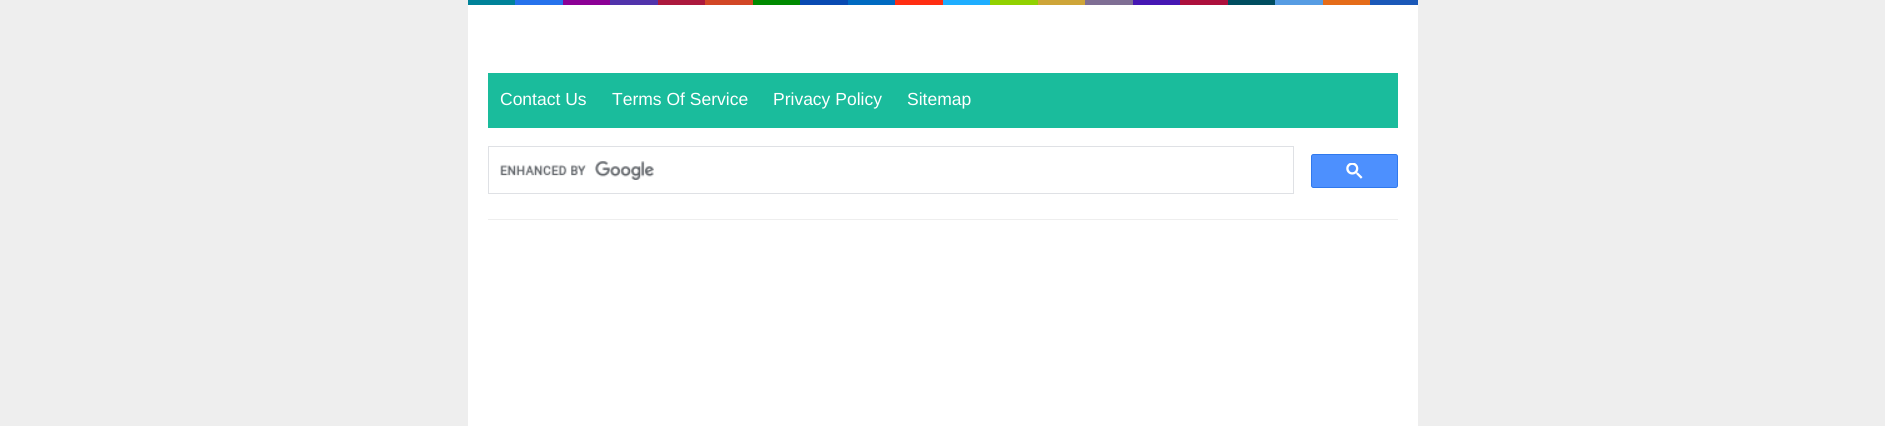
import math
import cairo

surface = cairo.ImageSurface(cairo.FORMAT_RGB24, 1885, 426)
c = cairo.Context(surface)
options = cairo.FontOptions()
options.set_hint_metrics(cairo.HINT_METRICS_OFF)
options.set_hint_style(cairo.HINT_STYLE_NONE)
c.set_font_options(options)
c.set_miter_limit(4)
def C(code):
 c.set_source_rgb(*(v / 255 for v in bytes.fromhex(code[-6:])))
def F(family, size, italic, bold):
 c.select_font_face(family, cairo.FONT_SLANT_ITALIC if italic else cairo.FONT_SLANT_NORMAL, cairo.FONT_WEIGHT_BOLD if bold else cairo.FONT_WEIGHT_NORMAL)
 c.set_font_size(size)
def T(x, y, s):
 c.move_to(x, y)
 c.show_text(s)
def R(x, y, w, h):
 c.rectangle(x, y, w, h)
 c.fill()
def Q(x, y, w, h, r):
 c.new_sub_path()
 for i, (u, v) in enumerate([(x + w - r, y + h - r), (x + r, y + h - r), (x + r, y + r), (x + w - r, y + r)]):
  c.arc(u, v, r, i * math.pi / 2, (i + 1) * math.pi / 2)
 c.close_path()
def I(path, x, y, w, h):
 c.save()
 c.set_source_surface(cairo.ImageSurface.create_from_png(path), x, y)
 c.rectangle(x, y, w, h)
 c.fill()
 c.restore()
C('eeeeee')
c.paint()
C('ffffff')
R(468,5,950,421)
C('008299')
R(468,0,47,5)
C('2672ec')
R(515,0,48,5)
C('8c0095')
R(563,0,47,5)
C('5133ab')
R(610,0,48,5)
C('ac193d')
R(658,0,47,5)
C('d24726')
R(705,0,48,5)
C('008a00')
R(753,0,47,5)
C('094ab2')
R(800,0,48,5)
C('006ac1')
R(848,0,47,5)
C('ff2e12')
R(895,0,48,5)
C('1faeff')
R(943,0,47,5)
C('91d100')
R(990,0,48,5)
C('cea539')
R(1038,0,47,5)
C('7f6e94')
R(1085,0,48,5)
C('4617b4')
R(1133,0,47,5)
C('ad103c')
R(1180,0,48,5)
C('004d60')
R(1228,0,47,5)
C('569ce3')
R(1275,0,48,5)
C('e56c19')
R(1323,0,47,5)
C('1b58b8')
R(1370,0,48,5)
C('1abc9c')
R(488,73,910,55)
F('Liberation Sans',17.5,0,0)
C('ffffff')
T(500,105,'Contact Us')
T(612,105,'Terms Of Service')
T(773,105,'Privacy Policy')
T(907,105,'Sitemap')
c.rectangle(488.5,146.5,805,47)
C('dfe1e5')
c.set_line_width(1)
c.stroke()
I('1.png',500,161,154,19)
C('4d90fe')
Q(1311.5,154.5,86,33,2)
c.fill_preserve()
C('3079ed')
c.stroke()
I('2.png',1346,163,17,16)
C('eeeeee')
R(488,219,910,1)
surface.write_to_png('o.png')
